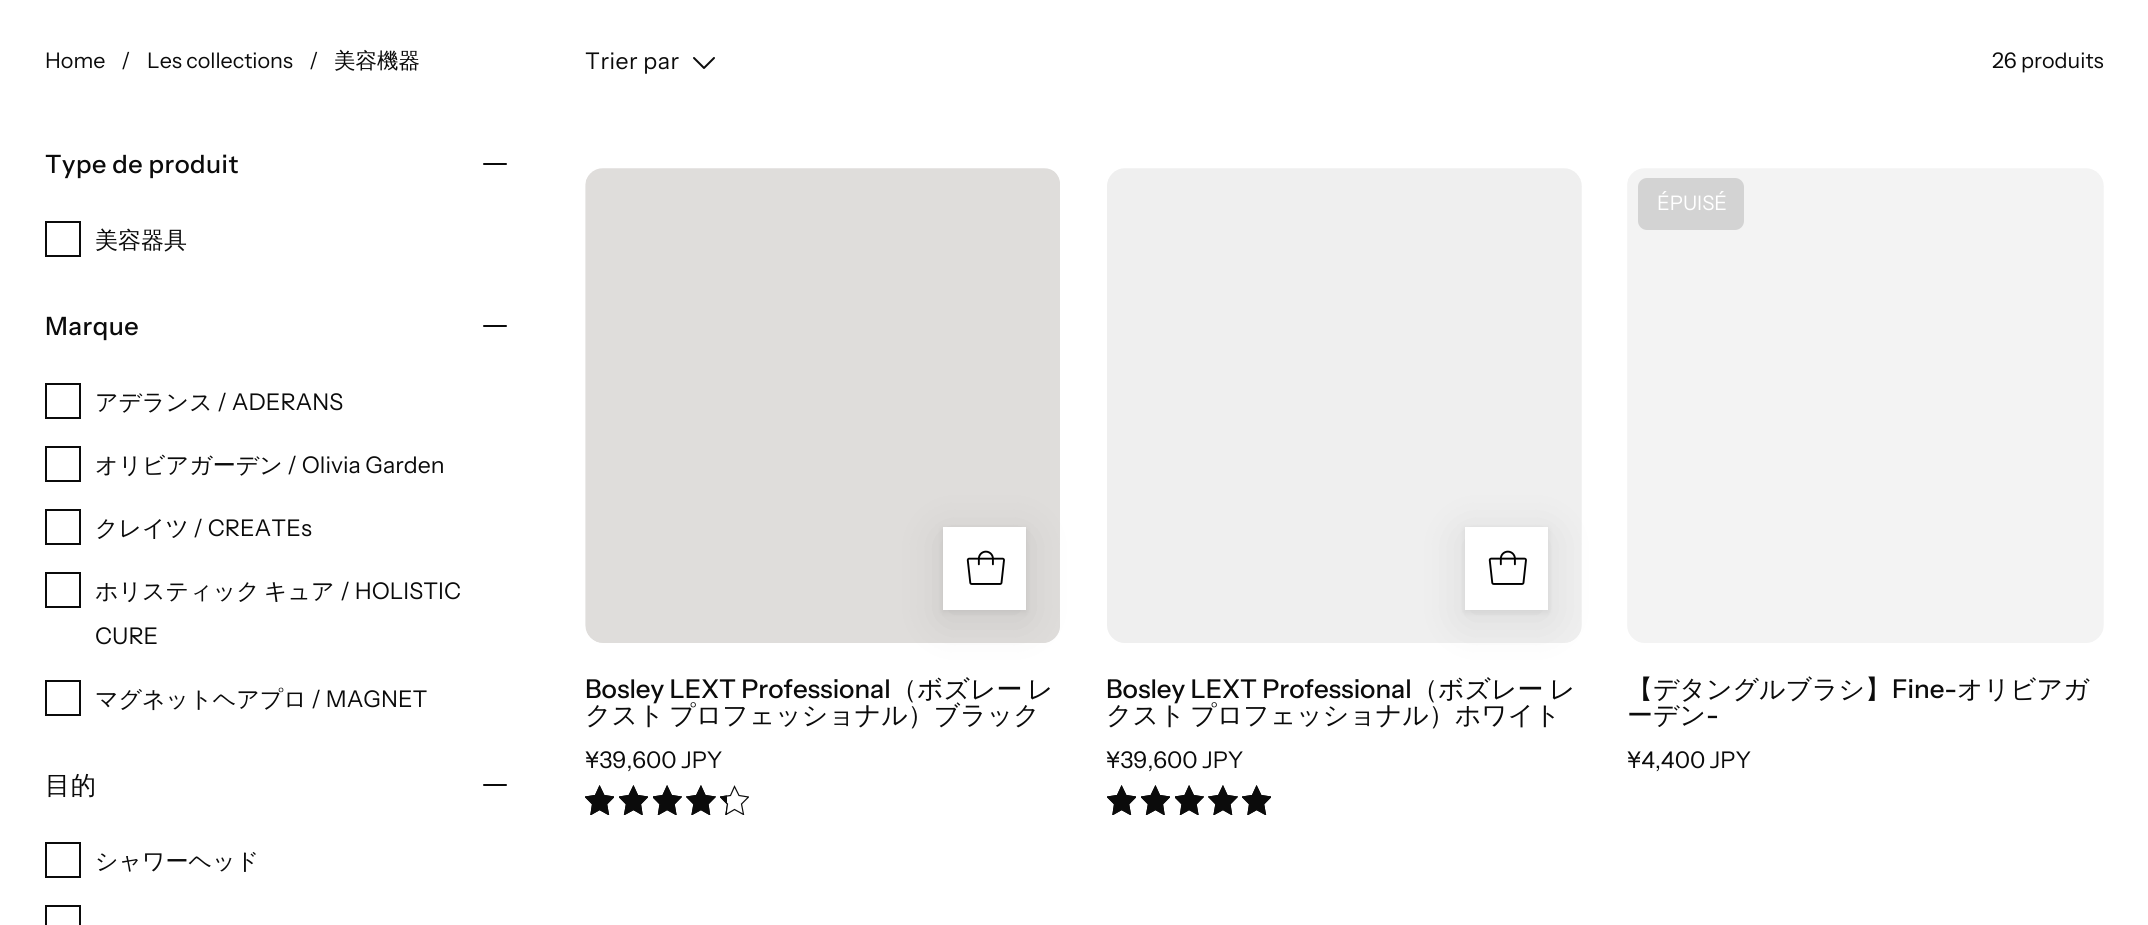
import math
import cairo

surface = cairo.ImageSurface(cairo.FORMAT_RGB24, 2148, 925)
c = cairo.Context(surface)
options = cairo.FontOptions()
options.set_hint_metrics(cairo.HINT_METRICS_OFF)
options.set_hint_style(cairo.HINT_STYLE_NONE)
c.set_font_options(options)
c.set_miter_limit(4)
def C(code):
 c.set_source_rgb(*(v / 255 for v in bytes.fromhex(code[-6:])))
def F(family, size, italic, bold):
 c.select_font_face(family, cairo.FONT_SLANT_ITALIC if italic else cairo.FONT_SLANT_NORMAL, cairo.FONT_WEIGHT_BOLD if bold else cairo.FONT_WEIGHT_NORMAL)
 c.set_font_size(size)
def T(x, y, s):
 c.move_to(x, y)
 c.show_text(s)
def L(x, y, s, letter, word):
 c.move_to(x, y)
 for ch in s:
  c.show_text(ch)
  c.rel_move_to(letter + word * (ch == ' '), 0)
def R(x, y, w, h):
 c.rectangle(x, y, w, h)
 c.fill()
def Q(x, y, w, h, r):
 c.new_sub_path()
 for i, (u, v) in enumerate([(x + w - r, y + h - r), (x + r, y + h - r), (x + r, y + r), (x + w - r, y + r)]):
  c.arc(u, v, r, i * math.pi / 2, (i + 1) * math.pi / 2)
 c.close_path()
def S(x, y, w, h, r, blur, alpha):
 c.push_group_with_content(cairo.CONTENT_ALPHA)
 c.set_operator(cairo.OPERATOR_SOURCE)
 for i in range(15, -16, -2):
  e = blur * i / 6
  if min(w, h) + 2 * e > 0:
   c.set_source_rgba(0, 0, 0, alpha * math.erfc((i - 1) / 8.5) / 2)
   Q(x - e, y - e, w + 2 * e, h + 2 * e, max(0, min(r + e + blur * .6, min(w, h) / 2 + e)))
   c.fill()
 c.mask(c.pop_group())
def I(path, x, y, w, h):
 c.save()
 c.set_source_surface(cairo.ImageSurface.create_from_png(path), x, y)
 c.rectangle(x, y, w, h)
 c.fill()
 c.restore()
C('ffffff')
c.paint()
F('Instrument Sans',21.5,0,0)
C('0b0b0b')
T(45,68,'Home')
T(121,68,'/')
T(147,68,'Les collections')
T(309,68,'/')
F('WenQuanYi Zen Hei Medium',21.5,0,0)
T(334,68,'美容機器')
F('Instrument Sans',23,0,0)
L(585,69,'Trier par',.5,0)
c.new_path()
c.move_to(714,58)
c.line_to(704,68)
c.line_to(694,58)
c.set_line_cap(cairo.LINE_CAP_ROUND)
c.set_line_join(cairo.LINE_JOIN_ROUND)
c.stroke()
F('Instrument Sans',21.5,0,0)
T(1992,68,'26 produits')
F('Instrument Sans Medium',25.25,0,0)
L(45,173,'Type de produit',.5,0)
c.new_path()
c.move_to(506,164)
c.line_to(484,164)
c.stroke()
c.rectangle(46,222,34,34)
c.set_line_cap(cairo.LINE_CAP_BUTT)
c.set_line_join(cairo.LINE_JOIN_MITER)
c.stroke()
F('WenQuanYi Zen Hei Medium',23,0,0)
T(95,248,'美容器具')
F('Instrument Sans Medium',25.25,0,0)
L(45,335,'Marque',.5,0)
c.new_path()
c.move_to(506,326)
c.line_to(484,326)
c.set_line_cap(cairo.LINE_CAP_ROUND)
c.set_line_join(cairo.LINE_JOIN_ROUND)
c.stroke()
c.rectangle(46,384,34,34)
c.set_line_cap(cairo.LINE_CAP_BUTT)
c.set_line_join(cairo.LINE_JOIN_MITER)
c.stroke()
F('WenQuanYi Zen Hei Medium',23,0,0)
T(95,410,'アデランス')
F('Instrument Sans',23,0,0)
T(217,410,'/ ADERANS')
c.rectangle(46,447,34,34)
c.stroke()
F('WenQuanYi Zen Hei Medium',23,0,0)
T(95,473,'オリビアガーデン')
F('Instrument Sans',23,0,0)
T(287,473,'/ Olivia Garden')
c.rectangle(46,510,34,34)
c.stroke()
F('WenQuanYi Zen Hei Medium',23,0,0)
T(95,536,'クレイツ')
F('Instrument Sans',23,0,0)
T(193,536,'/ CREATEs')
c.rectangle(46,573,34,34)
c.stroke()
F('WenQuanYi Zen Hei Medium',23,0,0)
T(95,599,'ホリスティック')
T(264,599,'キュア')
F('Instrument Sans',23,0,0)
T(340,599,'/ HOLISTIC')
T(95,644,'CURE')
c.rectangle(46,681,34,34)
c.stroke()
F('WenQuanYi Zen Hei Medium',23,0,0)
T(95,707,'マグネットヘアプロ')
F('Instrument Sans',23,0,0)
T(311,707,'/ MAGNET')
F('WenQuanYi Zen Hei Medium',25.25,0,0)
L(45,794,'目的',.5,0)
c.new_path()
c.move_to(506,785)
c.line_to(484,785)
c.set_line_cap(cairo.LINE_CAP_ROUND)
c.set_line_join(cairo.LINE_JOIN_ROUND)
c.stroke()
c.rectangle(46,843,34,34)
c.set_line_cap(cairo.LINE_CAP_BUTT)
c.set_line_join(cairo.LINE_JOIN_MITER)
c.stroke()
F('WenQuanYi Zen Hei Medium',23,0,0)
T(95,869,'シャワーヘッド')
c.rectangle(46,906,34,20)
c.stroke()
I('1.png',585,168,475,475)
C('000000')
S(943,529,83,83,0,3.5,.07)
S(943,536,83,83,0,22.5,.1)
C('ffffff')
R(943,527,83,83)
I('2.png',966,550,39,35)
F('Instrument Sans Medium',25.9,0,0)
C('0b0b0b')
T(585,698,'Bosley LEXT Professional')
F('WenQuanYi Zen Hei Medium',25.9,0,0)
T(891,698,'（ボズレー')
T(1027,698,'レ')
L(585,724,'クスト プロフェッショナル）ブラック',0,-3)
F('Instrument Sans',23,0,0)
T(585,768,'¥39,600 JPY')
c.save()
c.rectangle(585,785,29,30)
c.clip()
c.new_path()
c.move_to(604,795.5)
c.line_to(599.5,786.5)
c.line_to(595.5,795.5)
c.line_to(585.5,797)
c.line_to(592.5,804)
c.line_to(591,814.5)
c.line_to(599.5,809.5)
c.line_to(608.5,814.5)
c.line_to(606.5,804)
c.line_to(613.5,797)
c.close_path()
c.set_line_width(1.2)
c.stroke()
c.restore()
c.save()
c.rectangle(619,785,29,30)
c.clip()
c.new_path()
c.move_to(637.5,795.5)
c.line_to(633.5,786.5)
c.line_to(629,795.5)
c.line_to(619.5,797)
c.line_to(626.5,804)
c.line_to(624.5,814.5)
c.line_to(633.5,809.5)
c.line_to(642,814.5)
c.line_to(640.5,804)
c.line_to(647.5,797)
c.close_path()
c.set_line_width(1.2)
c.stroke()
c.restore()
c.save()
c.rectangle(653,785,29,30)
c.clip()
c.new_path()
c.move_to(671.5,795.5)
c.line_to(667,786.5)
c.line_to(663,795.5)
c.line_to(653,797)
c.line_to(660,804)
c.line_to(658.5,814.5)
c.line_to(667,809.5)
c.line_to(676,814.5)
c.line_to(674,804)
c.line_to(681,797)
c.close_path()
c.set_line_width(1.2)
c.stroke()
c.restore()
c.save()
c.rectangle(686,785,30,30)
c.clip()
c.new_path()
c.move_to(705,795.5)
c.line_to(701,786.5)
c.line_to(696.5,795.5)
c.line_to(687,797)
c.line_to(694,804)
c.line_to(692,814.5)
c.line_to(701,809.5)
c.line_to(709.5,814.5)
c.line_to(708,804)
c.line_to(715,797)
c.close_path()
c.set_line_width(1.2)
c.stroke()
c.restore()
c.save()
c.rectangle(720,785,29,30)
c.clip()
c.new_path()
c.move_to(739,795.5)
c.line_to(734.5,786.5)
c.line_to(730.5,795.5)
c.line_to(720.5,797)
c.line_to(727.5,804)
c.line_to(726,814.5)
c.line_to(734.5,809.5)
c.line_to(743.5,814.5)
c.line_to(741.5,804)
c.line_to(748.5,797)
c.close_path()
c.set_line_width(1.2)
c.stroke()
c.restore()
I('3.png',585,785,29,30)
I('4.png',619,785,29,30)
I('5.png',653,785,29,30)
I('6.png',686,785,30,30)
I('7.png',720,795,7,20)
I('8.png',1107,168,475,475)
C('000000')
S(1465,529,83,83,0,3.5,.07)
S(1465,536,83,83,0,22.5,.1)
C('ffffff')
R(1465,527,83,83)
I('9.png',1488,550,39,35)
F('Instrument Sans Medium',25.9,0,0)
C('0b0b0b')
T(1106,698,'Bosley LEXT Professional')
F('WenQuanYi Zen Hei Medium',25.9,0,0)
T(1412,698,'（ボズレー')
T(1549,698,'レ')
L(1106,724,'クスト プロフェッショナル）ホワイト',0,-3)
F('Instrument Sans',23,0,0)
T(1106,768,'¥39,600 JPY')
c.save()
c.rectangle(1107,785,29,30)
c.clip()
c.new_path()
c.move_to(1126,795.5)
c.line_to(1121.5,786.5)
c.line_to(1117.5,795.5)
c.line_to(1107.5,797)
c.line_to(1114.5,804)
c.line_to(1113,814.5)
c.line_to(1121.5,809.5)
c.line_to(1130.5,814.5)
c.line_to(1128.5,804)
c.line_to(1135.5,797)
c.close_path()
c.set_line_width(1.2)
c.stroke()
c.restore()
c.save()
c.rectangle(1141,785,29,30)
c.clip()
c.new_path()
c.move_to(1159.5,795.5)
c.line_to(1155.5,786.5)
c.line_to(1151,795.5)
c.line_to(1141.5,797)
c.line_to(1148.5,804)
c.line_to(1146.5,814.5)
c.line_to(1155.5,809.5)
c.line_to(1164,814.5)
c.line_to(1162.5,804)
c.line_to(1169.5,797)
c.close_path()
c.set_line_width(1.2)
c.stroke()
c.restore()
c.save()
c.rectangle(1175,785,29,30)
c.clip()
c.new_path()
c.move_to(1193.5,795.5)
c.line_to(1189,786.5)
c.line_to(1185,795.5)
c.line_to(1175,797)
c.line_to(1182,804)
c.line_to(1180.5,814.5)
c.line_to(1189,809.5)
c.line_to(1198,814.5)
c.line_to(1196,804)
c.line_to(1203,797)
c.close_path()
c.set_line_width(1.2)
c.stroke()
c.restore()
c.save()
c.rectangle(1208,785,30,30)
c.clip()
c.new_path()
c.move_to(1227,795.5)
c.line_to(1223,786.5)
c.line_to(1218.5,795.5)
c.line_to(1209,797)
c.line_to(1216,804)
c.line_to(1214,814.5)
c.line_to(1223,809.5)
c.line_to(1231.5,814.5)
c.line_to(1230,804)
c.line_to(1237,797)
c.close_path()
c.set_line_width(1.2)
c.stroke()
c.restore()
c.save()
c.rectangle(1242,785,29,30)
c.clip()
c.new_path()
c.move_to(1261,795.5)
c.line_to(1256.5,786.5)
c.line_to(1252.5,795.5)
c.line_to(1242.5,797)
c.line_to(1249.5,804)
c.line_to(1248,814.5)
c.line_to(1256.5,809.5)
c.line_to(1265.5,814.5)
c.line_to(1263.5,804)
c.line_to(1270.5,797)
c.close_path()
c.set_line_width(1.2)
c.stroke()
c.restore()
I('3.png',1107,785,29,30)
I('4.png',1141,785,29,30)
I('5.png',1175,785,29,30)
I('6.png',1208,785,30,30)
I('3.png',1242,785,29,30)
I('10.png',1627,168,477,475)
C('d3d3d3')
Q(1638,178,106,52,9)
c.fill()
F('Instrument Sans',20,0,0)
C('ffffff')
T(1657,210,'ÉPUISÉ')
F('WenQuanYi Zen Hei Medium',25.9,0,0)
C('0b0b0b')
T(1627,698,'【デタングルブラシ】')
F('Instrument Sans Medium',25.9,0,0)
T(1892,698,'Fine-')
F('WenQuanYi Zen Hei Medium',25.9,0,0)
T(1957,698,'オリビアガ')
T(1627,724,'ーデン')
F('Instrument Sans Medium',25.9,0,0)
T(1706,724,'-')
F('Instrument Sans',23,0,0)
T(1627,768,'¥4,400 JPY')
surface.write_to_png('o.png')
